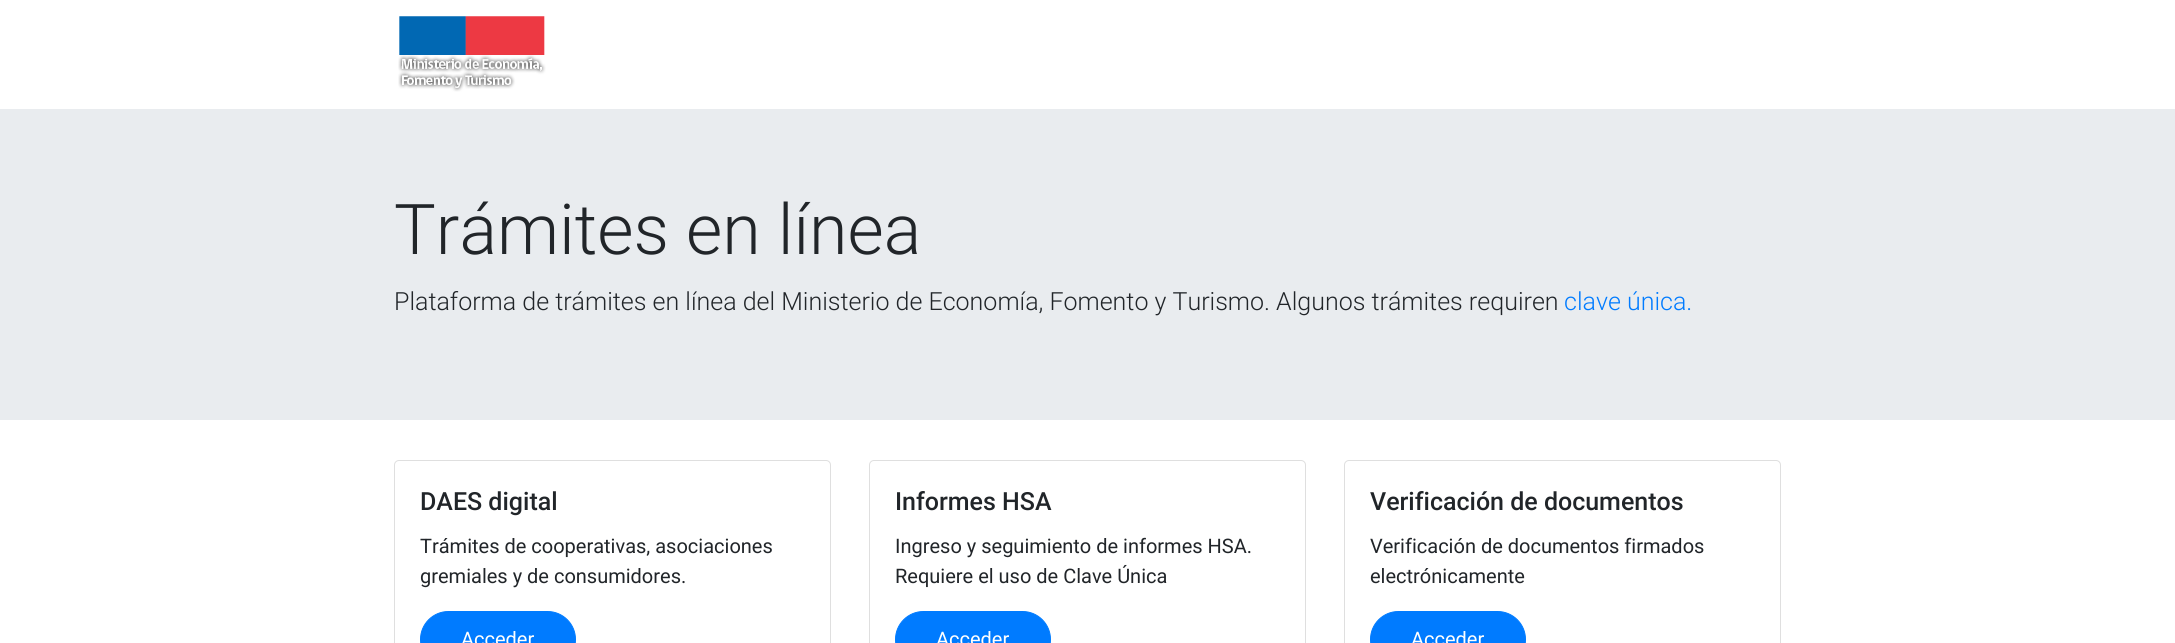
import math
import cairo

surface = cairo.ImageSurface(cairo.FORMAT_RGB24, 2175, 643)
c = cairo.Context(surface)
options = cairo.FontOptions()
options.set_hint_metrics(cairo.HINT_METRICS_OFF)
options.set_hint_style(cairo.HINT_STYLE_NONE)
c.set_font_options(options)
c.set_miter_limit(4)
def C(code):
 c.set_source_rgb(*(v / 255 for v in bytes.fromhex(code[-6:])))
def F(family, size, italic, bold):
 c.select_font_face(family, cairo.FONT_SLANT_ITALIC if italic else cairo.FONT_SLANT_NORMAL, cairo.FONT_WEIGHT_BOLD if bold else cairo.FONT_WEIGHT_NORMAL)
 c.set_font_size(size)
def T(x, y, s):
 c.move_to(x, y)
 c.show_text(s)
def R(x, y, w, h):
 c.rectangle(x, y, w, h)
 c.fill()
def Q(x, y, w, h, r):
 c.new_sub_path()
 for i, (u, v) in enumerate([(x + w - r, y + h - r), (x + r, y + h - r), (x + r, y + r), (x + w - r, y + r)]):
  c.arc(u, v, r, i * math.pi / 2, (i + 1) * math.pi / 2)
 c.close_path()
def I(path, x, y, w, h):
 c.save()
 c.set_source_surface(cairo.ImageSurface.create_from_png(path), x, y)
 c.rectangle(x, y, w, h)
 c.fill()
 c.restore()
C('ffffff')
c.paint()
I('1.png',398,16,148,76)
C('e9ecef')
R(0,109,2175,311)
F('Roboto Light',70,0,0)
C('212529')
T(394,254,'Trámites en línea')
F('Roboto Light',25,0,0)
T(394,310,'Plataforma de trámites en línea del Ministerio de Economía, Fomento y Turismo. Algunos trámites requiren')
C('007bff')
T(1564,310,'clave única.')
Q(394.5,460.5,436,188,4.5)
C('dfdfdf')
c.set_line_width(1)
c.stroke()
F('Roboto Medium',25,0,0)
C('212529')
T(420,510,'DAES digital')
F('Roboto',20,0,0)
T(420,553,'Trámites de cooperativas, asociaciones')
T(420,583,'gremiales y de consumidores.')
C('007bff')
Q(420.5,611.5,155,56,28)
c.fill_preserve()
c.stroke()
C('ffffff')
T(461,646,'Acceder')
Q(869.5,460.5,436,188,4.5)
C('dfdfdf')
c.stroke()
F('Roboto Medium',25,0,0)
C('212529')
T(895,510,'Informes HSA')
F('Roboto',20,0,0)
T(895,553,'Ingreso y seguimiento de informes HSA.')
T(895,583,'Requiere el uso de Clave Única')
C('007bff')
Q(895.5,611.5,155,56,28)
c.fill_preserve()
c.stroke()
C('ffffff')
T(936,646,'Acceder')
Q(1344.5,460.5,436,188,4.5)
C('dfdfdf')
c.stroke()
F('Roboto Medium',25,0,0)
C('212529')
T(1370,510,'Verificación de documentos')
F('Roboto',20,0,0)
T(1370,553,'Verificación de documentos firmados')
T(1370,583,'electrónicamente')
C('007bff')
Q(1370.5,611.5,155,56,28)
c.fill_preserve()
c.stroke()
C('ffffff')
T(1411,646,'Acceder')
surface.write_to_png('o.png')
